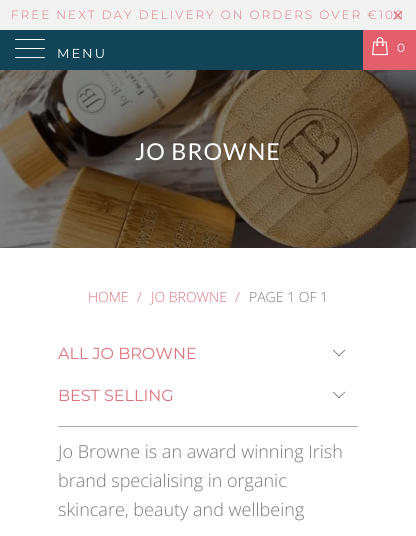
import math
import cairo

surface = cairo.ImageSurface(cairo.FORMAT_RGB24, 416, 536)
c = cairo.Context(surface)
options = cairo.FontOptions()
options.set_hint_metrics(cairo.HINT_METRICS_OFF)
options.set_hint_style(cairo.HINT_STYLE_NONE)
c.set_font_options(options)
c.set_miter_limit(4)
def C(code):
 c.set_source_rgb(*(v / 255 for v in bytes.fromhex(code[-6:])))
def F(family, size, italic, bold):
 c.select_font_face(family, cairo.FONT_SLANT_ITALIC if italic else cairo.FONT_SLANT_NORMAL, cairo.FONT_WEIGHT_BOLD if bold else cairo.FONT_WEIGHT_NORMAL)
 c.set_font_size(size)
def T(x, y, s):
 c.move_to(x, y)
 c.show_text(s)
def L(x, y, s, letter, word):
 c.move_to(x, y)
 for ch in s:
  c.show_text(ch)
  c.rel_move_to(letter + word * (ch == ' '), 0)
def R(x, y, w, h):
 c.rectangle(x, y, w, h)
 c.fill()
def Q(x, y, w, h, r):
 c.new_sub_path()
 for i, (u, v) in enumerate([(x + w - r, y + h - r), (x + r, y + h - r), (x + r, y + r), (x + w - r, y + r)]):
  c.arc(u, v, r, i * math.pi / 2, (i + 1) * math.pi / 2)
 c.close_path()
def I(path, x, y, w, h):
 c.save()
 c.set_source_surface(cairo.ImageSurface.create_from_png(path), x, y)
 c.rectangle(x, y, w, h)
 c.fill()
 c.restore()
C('ffffff')
c.paint()
C('f2f2f2')
R(0,0,416,30)
F('Montserrat Light',12,0,0)
C('de737d')
L(11,19,'FREE NEXT DAY DELIVERY ON ORDERS OVER €100',2,0)
F('Liberation Sans',20,0,0)
L(392,22,'×',2,0)
C('114456')
R(0,30,363,40)
C('ffffff')
Q(15,39,30,1,.5)
c.fill()
Q(15,48,30,1,.5)
c.fill()
Q(15,57,30,1,.5)
c.fill()
F('Montserrat',13,0,0)
L(57,58,'MENU',2,0)
C('e25f6b')
R(363,30,53,40)
I('1.png',372,37,16,19)
F('Montserrat',12,0,0)
C('ffffff')
L(397,52,'0',1,0)
I('2.png',0,70,416,178)
F('Lato',23.25,0,0)
L(135,160,'JO BROWNE',1,0)
F('Open Sans Light',14,0,0)
C('de737d')
T(88,302,'HOME')
T(137,302,'/')
T(151,302,'JO BROWNE')
T(235,302,'/')
C('7c7878')
T(249,302,'PAGE 1 OF 1')
I('3.png',333,349,12,8)
F('Montserrat',16,0,0)
C('de737d')
T(58,359,'ALL JO BROWNE')
I('3.png',333,391,12,8)
T(58,401,'BEST SELLING')
C('aaaaaa')
R(58,426,300,1)
F('Open Sans Light',18,0,0)
C('7c7878')
T(58,458,'Jo Browne is an award winning Irish')
T(58,487,'brand specialising in organic')
T(58,516,'skincare, beauty and wellbeing')
surface.write_to_png('o.png')
